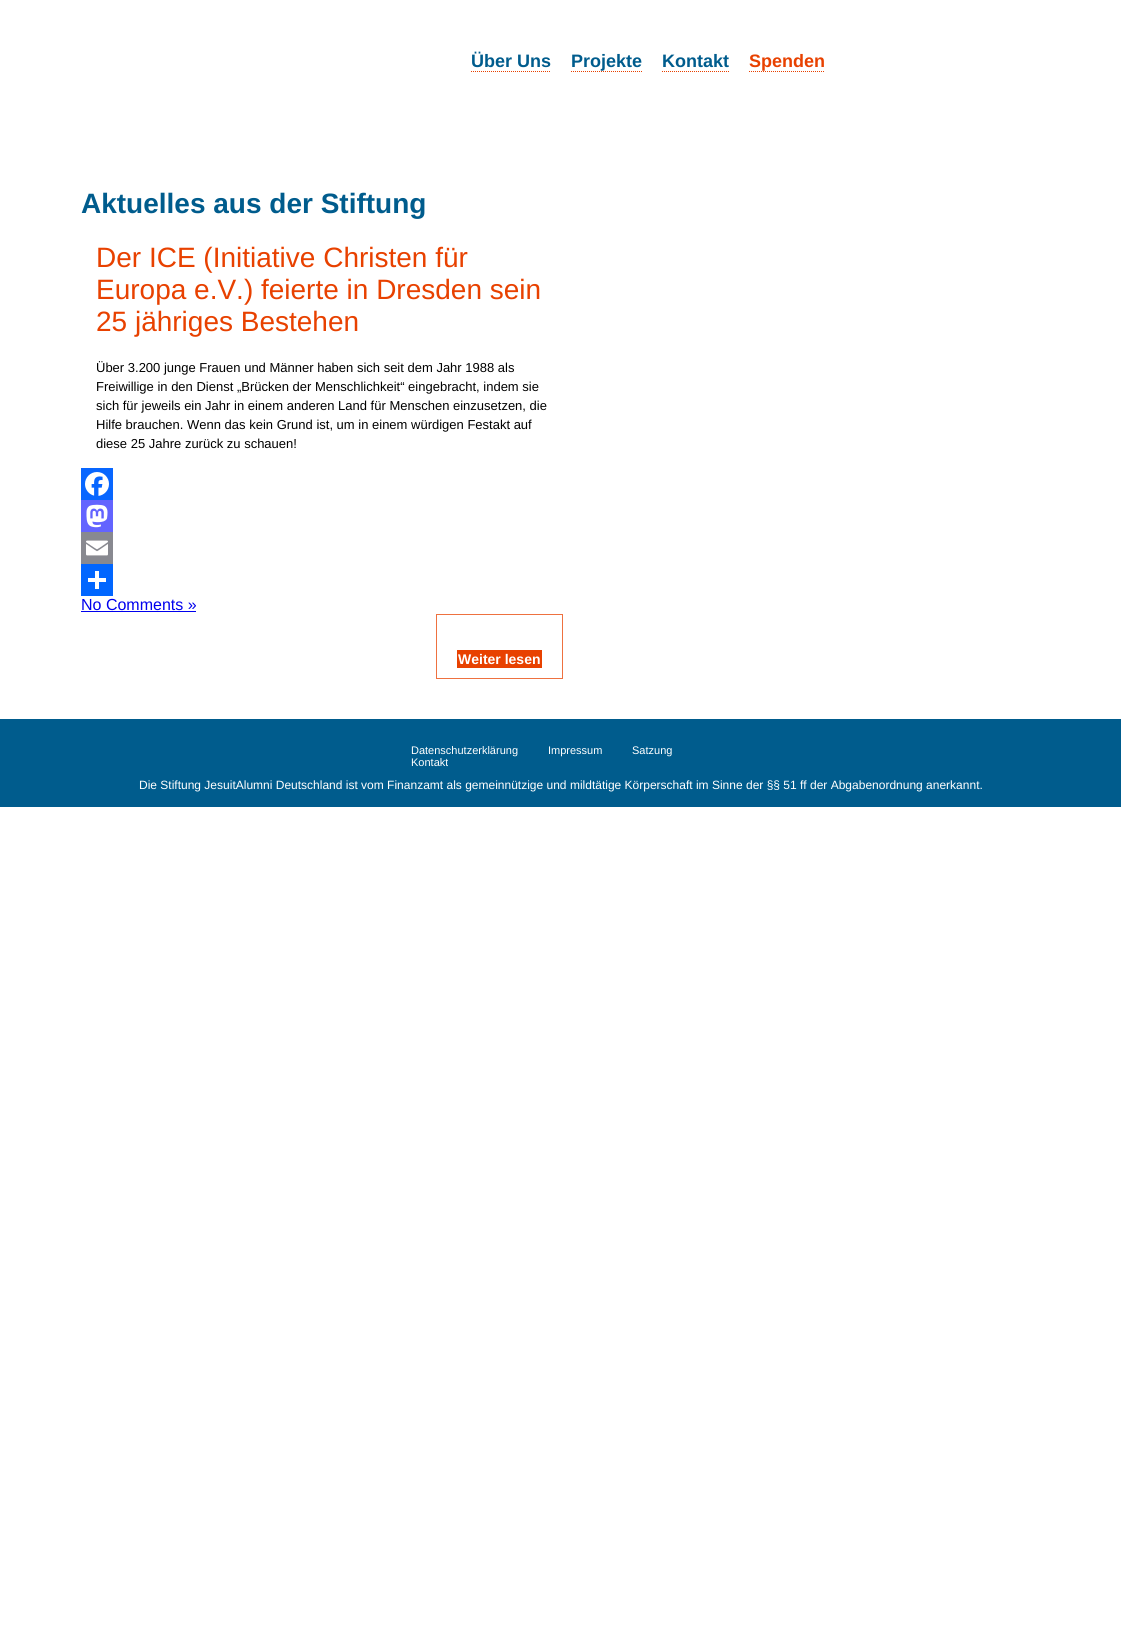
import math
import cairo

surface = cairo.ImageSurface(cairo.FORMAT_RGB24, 1121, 1626)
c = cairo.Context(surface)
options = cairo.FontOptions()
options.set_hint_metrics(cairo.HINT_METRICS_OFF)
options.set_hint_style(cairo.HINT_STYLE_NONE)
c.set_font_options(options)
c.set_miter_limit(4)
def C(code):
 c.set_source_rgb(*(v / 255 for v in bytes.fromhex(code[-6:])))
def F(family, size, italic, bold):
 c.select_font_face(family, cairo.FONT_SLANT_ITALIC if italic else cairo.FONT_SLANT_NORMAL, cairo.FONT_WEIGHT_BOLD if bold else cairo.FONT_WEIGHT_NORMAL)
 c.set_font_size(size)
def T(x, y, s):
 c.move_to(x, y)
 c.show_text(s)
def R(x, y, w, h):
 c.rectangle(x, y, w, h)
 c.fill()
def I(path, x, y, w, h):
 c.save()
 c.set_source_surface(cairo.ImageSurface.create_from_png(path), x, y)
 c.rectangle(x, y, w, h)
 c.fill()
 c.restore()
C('ffffff')
c.paint()
F('Liberation Sans',18,0,1)
C('005c8d')
T(471,67,'Über Uns')
c.new_path()
c.move_to(471,71.5)
c.line_to(551,71.5)
C('e84100')
c.set_line_width(1)
c.set_dash([1,1])
c.stroke()
C('005c8d')
T(571,67,'Projekte')
c.new_path()
c.move_to(571,71.5)
c.line_to(642,71.5)
C('e84100')
c.stroke()
C('005c8d')
T(662,67,'Kontakt')
c.new_path()
c.move_to(662,71.5)
c.line_to(729,71.5)
C('e84100')
c.stroke()
T(749,67,'Spenden')
c.new_path()
c.move_to(749,71.5)
c.line_to(825,71.5)
c.stroke()
F('Liberation Sans',28,0,1)
C('005c8d')
T(81,213,'Aktuelles aus der Stiftung')
F('Liberation Sans',28,0,0)
C('e84100')
T(96,267,'Der ICE (Initiative Christen für')
T(96,299,'Europa e.V.) feierte in Dresden sein')
T(96,331,'25 jähriges Bestehen')
F('Liberation Sans',13,0,0)
C('000000')
T(96,372,'Über 3.200 junge Frauen und Männer haben sich seit dem Jahr 1988 als')
T(96,391,'Freiwillige in den Dienst „Brücken der Menschlichkeit“ eingebracht, indem sie')
T(96,410,'sich für jeweils ein Jahr in einem anderen Land für Menschen einzusetzen, die')
T(96,429,'Hilfe brauchen. Wenn das kein Grund ist, um in einem würdigen Festakt auf')
T(96,448,'diese 25 Jahre zurück zu schauen!')
C('0866ff')
R(81,468,32,32)
I('1.png',85,472,24,24)
C('6364ff')
R(81,500,32,32)
I('2.png',86,504,22,24)
C('888990')
R(81,532,32,32)
I('3.png',86,540,22,16)
C('0166ff')
R(81,564,32,32)
C('ffffff')
R(95,571,4,18)
R(88,578,18,4)
F('Liberation Sans',16,0,0)
C('0000ee')
T(81,610,'No Comments »')
R(81,611,115,1)
c.rectangle(436.5,614.5,126,64)
C('ee7140')
c.set_dash([])
c.stroke()
C('e84100')
R(457,650,85,18)
F('Liberation Sans',14,0,1)
C('ffffff')
T(458,664,'Weiter lesen')
C('005c8d')
R(0,719,1121,88)
F('Liberation Sans',11,0,0)
C('ffffff')
T(411,754,'Datenschutzerklärung')
T(548,754,'Impressum')
T(632,754,'Satzung')
T(411,766,'Kontakt')
F('Liberation Sans',12,0,0)
T(139,789,'Die Stiftung JesuitAlumni Deutschland ist vom Finanzamt als gemeinnützige und mildtätige Körperschaft im Sinne der §§ 51 ff der Abgabenordnung anerkannt.')
surface.write_to_png('o.png')
